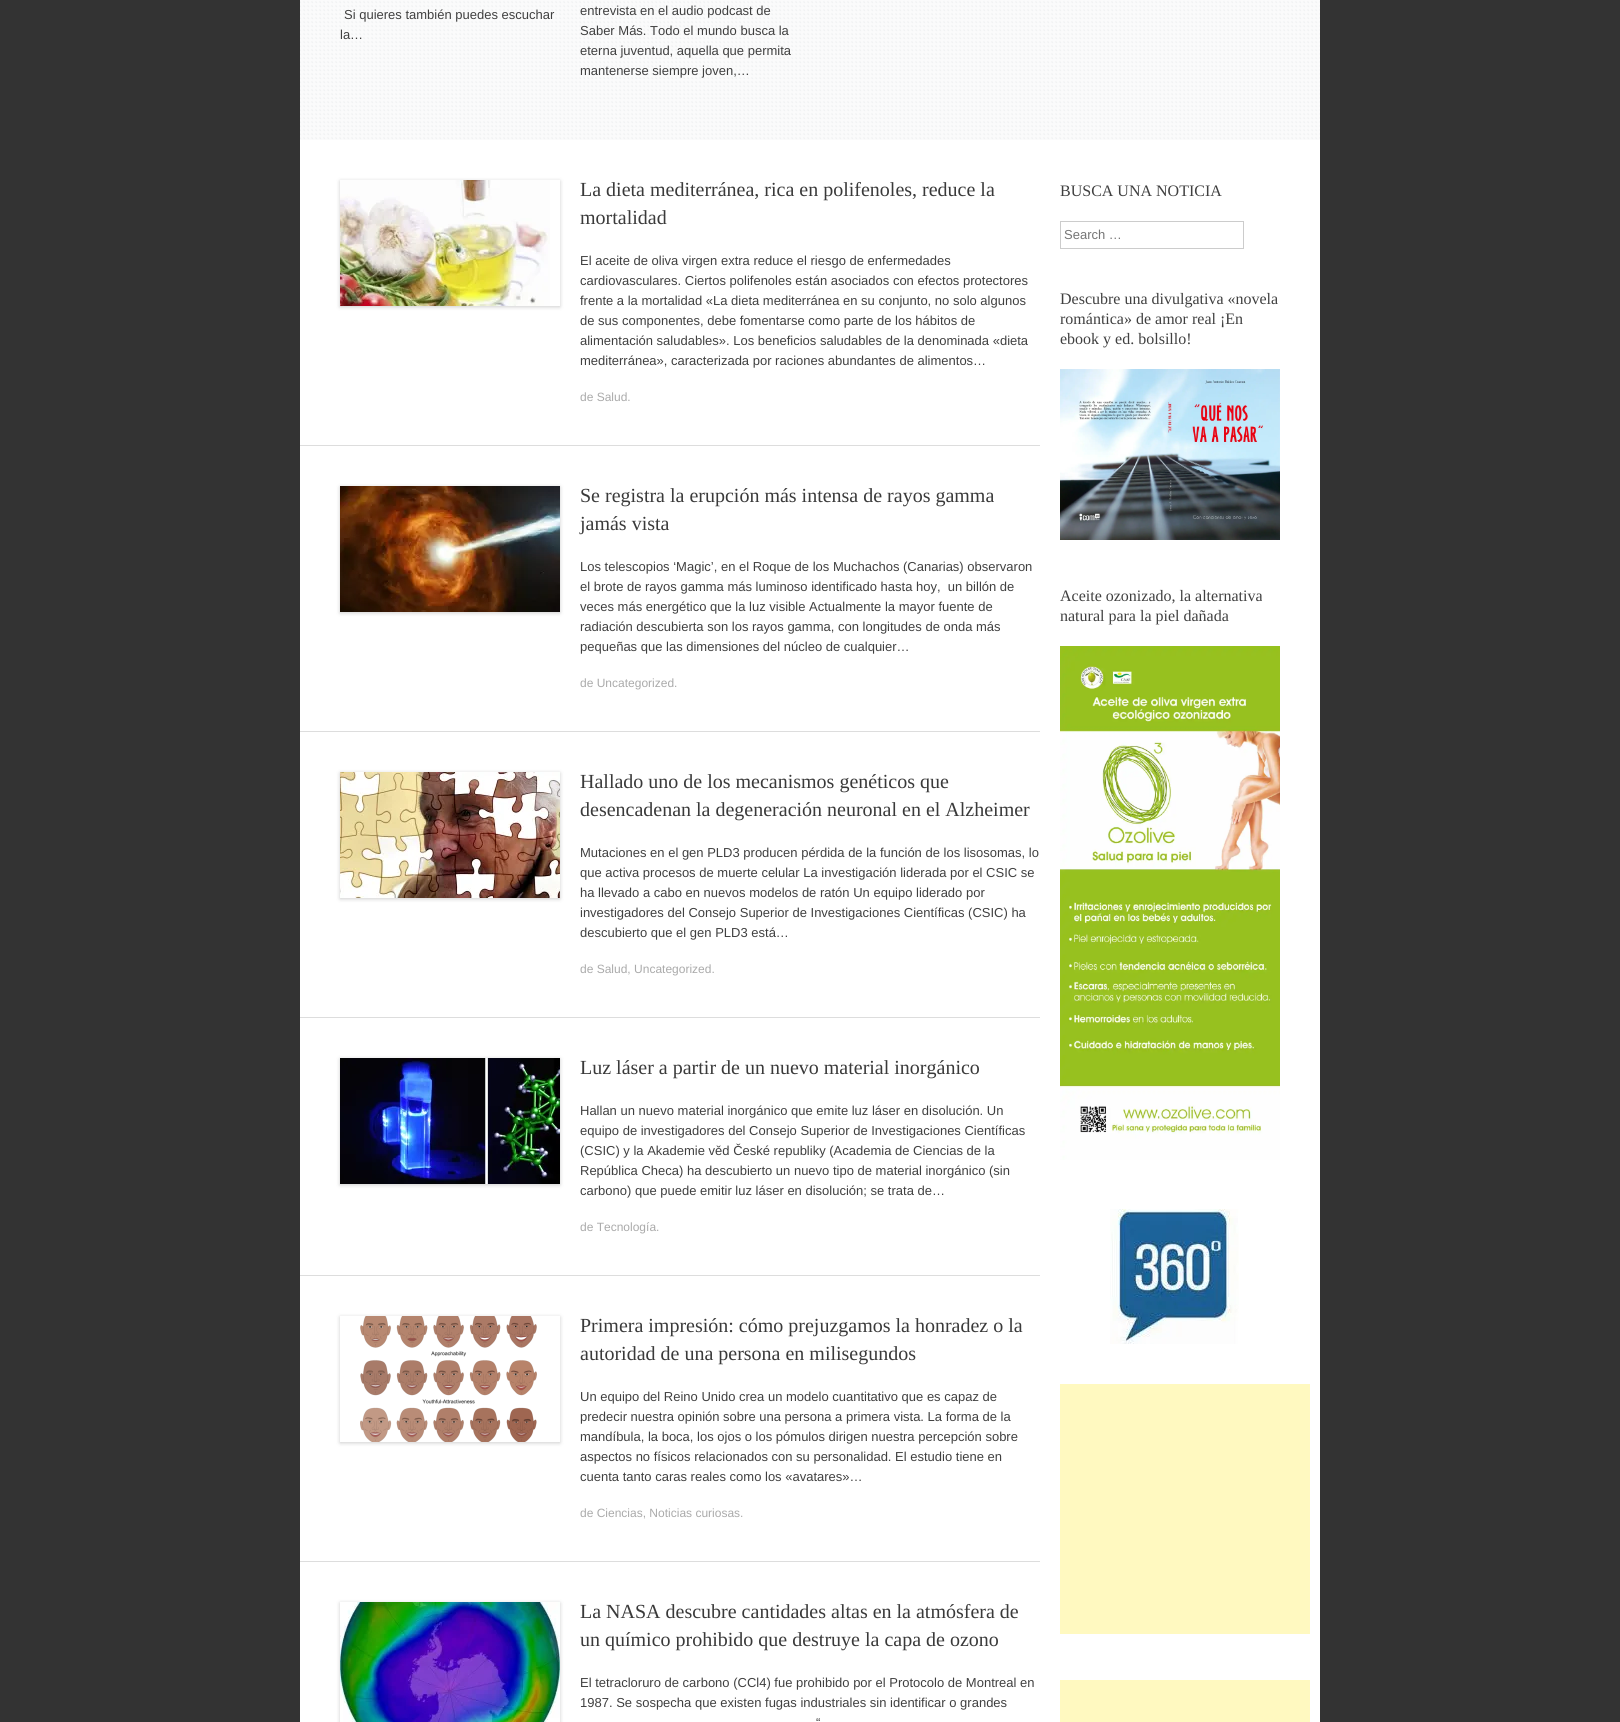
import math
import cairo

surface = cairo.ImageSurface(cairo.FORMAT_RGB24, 1620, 1722)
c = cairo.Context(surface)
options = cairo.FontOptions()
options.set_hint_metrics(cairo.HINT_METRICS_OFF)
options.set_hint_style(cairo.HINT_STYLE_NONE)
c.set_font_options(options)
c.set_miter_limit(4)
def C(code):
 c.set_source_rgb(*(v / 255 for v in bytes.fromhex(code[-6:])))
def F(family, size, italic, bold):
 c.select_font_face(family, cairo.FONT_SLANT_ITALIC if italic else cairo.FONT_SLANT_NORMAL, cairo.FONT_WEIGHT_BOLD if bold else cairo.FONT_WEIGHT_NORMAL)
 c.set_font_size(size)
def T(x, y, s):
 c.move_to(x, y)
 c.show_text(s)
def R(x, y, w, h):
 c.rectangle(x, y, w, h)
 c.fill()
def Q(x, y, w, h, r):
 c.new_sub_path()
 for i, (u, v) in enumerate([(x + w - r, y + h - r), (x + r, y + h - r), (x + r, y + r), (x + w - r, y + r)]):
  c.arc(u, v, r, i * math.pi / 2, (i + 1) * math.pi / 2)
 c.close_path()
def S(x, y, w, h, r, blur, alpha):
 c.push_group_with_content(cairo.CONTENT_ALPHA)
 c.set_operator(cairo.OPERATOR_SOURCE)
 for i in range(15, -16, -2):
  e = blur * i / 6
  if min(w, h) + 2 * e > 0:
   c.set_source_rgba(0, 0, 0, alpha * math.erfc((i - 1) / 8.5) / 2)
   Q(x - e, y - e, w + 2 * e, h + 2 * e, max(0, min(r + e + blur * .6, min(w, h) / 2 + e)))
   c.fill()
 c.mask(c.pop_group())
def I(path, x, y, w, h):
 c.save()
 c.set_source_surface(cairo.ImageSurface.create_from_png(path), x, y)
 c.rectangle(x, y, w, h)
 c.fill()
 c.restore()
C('333333')
c.paint()
C('ffffff')
R(300,0,1020,1722)
I('1.png',300,0,1020,140)
F('Liberation Sans',13,0,0)
C('404040')
T(344,19,'Si quieres también puedes escuchar')
T(340,39,'la…')
T(580,15,'entrevista en el audio podcast de')
T(580,35,'Saber Más. Todo el mundo busca la')
T(580,55,'eterna juventud, aquella que permita')
T(580,75,'mantenerse siempre joven,…')
C('dddddd')
R(300,445,740,1)
c.save()
c.set_fill_rule(cairo.FILL_RULE_EVEN_ODD)
c.new_path()
c.move_to(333,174)
c.line_to(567,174)
c.line_to(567,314)
c.line_to(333,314)
c.close_path()
c.move_to(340,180)
c.line_to(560,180)
c.line_to(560,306)
c.line_to(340,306)
c.close_path()
c.clip()
C('000000')
S(340,181,220,126,0,2,.2)
c.restore()
I('2.png',340,180,210,126)
F('Liberation Serif',20,0,0)
C('3a3a3a')
T(580,196,'La dieta mediterránea, rica en polifenoles, reduce la')
T(580,224,'mortalidad')
F('Liberation Sans',13,0,0)
C('404040')
T(580,265,'El aceite de oliva virgen extra reduce el riesgo de enfermedades')
T(580,285,'cardiovasculares. Ciertos polifenoles están asociados con efectos protectores')
T(580,305,'frente a la mortalidad «La dieta mediterránea en su conjunto, no solo algunos')
T(580,325,'de sus componentes, debe fomentarse como parte de los hábitos de')
T(580,345,'alimentación saludables». Los beneficios saludables de la denominada «dieta')
T(580,365,'mediterránea», caracterizada por raciones abundantes de alimentos…')
F('Liberation Sans',12,0,0)
C('aaaaaa')
T(580,401,'de Salud.')
C('dddddd')
R(300,731,740,1)
C('000000')
S(340,487,220,126,0,2,.2)
I('3.png',340,486,220,126)
F('Liberation Serif',20,0,0)
C('3a3a3a')
T(580,502,'Se registra la erupción más intensa de rayos gamma')
T(580,530,'jamás vista')
F('Liberation Sans',13,0,0)
C('404040')
T(580,571,'Los telescopios ‘Magic’, en el Roque de los Muchachos (Canarias) observaron')
T(580,591,'el brote de rayos gamma más luminoso identificado hasta hoy,  un billón de')
T(580,611,'veces más energético que la luz visible Actualmente la mayor fuente de')
T(580,631,'radiación descubierta son los rayos gamma, con longitudes de onda más')
T(580,651,'pequeñas que las dimensiones del núcleo de cualquier…')
F('Liberation Sans',12,0,0)
C('aaaaaa')
T(580,687,'de Uncategorized.')
C('dddddd')
R(300,1017,740,1)
C('000000')
S(340,773,220,126,0,2,.2)
I('4.png',340,772,220,126)
F('Liberation Serif',20,0,0)
C('3a3a3a')
T(580,788,'Hallado uno de los mecanismos genéticos que')
T(580,816,'desencadenan la degeneración neuronal en el Alzheimer')
F('Liberation Sans',13,0,0)
C('404040')
T(580,857,'Mutaciones en el gen PLD3 producen pérdida de la función de los lisosomas, lo')
T(580,877,'que activa procesos de muerte celular La investigación liderada por el CSIC se')
T(580,897,'ha llevado a cabo en nuevos modelos de ratón Un equipo liderado por')
T(580,917,'investigadores del Consejo Superior de Investigaciones Científicas (CSIC) ha')
T(580,937,'descubierto que el gen PLD3 está…')
F('Liberation Sans',12,0,0)
C('aaaaaa')
T(580,973,'de Salud, Uncategorized.')
C('dddddd')
R(300,1275,740,1)
C('000000')
S(340,1059,220,126,0,2,.2)
I('5.png',340,1058,220,126)
F('Liberation Serif',20,0,0)
C('3a3a3a')
T(580,1074,'Luz láser a partir de un nuevo material inorgánico')
F('Liberation Sans',13,0,0)
C('404040')
T(580,1115,'Hallan un nuevo material inorgánico que emite luz láser en disolución. Un')
T(580,1135,'equipo de investigadores del Consejo Superior de Investigaciones Científicas')
T(580,1155,'(CSIC) y la Akademie věd České republiky (Academia de Ciencias de la')
T(580,1175,'República Checa) ha descubierto un nuevo tipo de material inorgánico (sin')
T(580,1195,'carbono) que puede emitir luz láser en disolución; se trata de…')
F('Liberation Sans',12,0,0)
C('aaaaaa')
T(580,1231,'de Tecnología.')
C('dddddd')
R(300,1561,740,1)
c.save()
c.set_fill_rule(cairo.FILL_RULE_EVEN_ODD)
c.new_path()
c.move_to(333,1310)
c.line_to(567,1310)
c.line_to(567,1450)
c.line_to(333,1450)
c.close_path()
c.move_to(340,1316)
c.line_to(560,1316)
c.line_to(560,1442)
c.line_to(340,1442)
c.close_path()
c.clip()
C('000000')
S(340,1317,220,126,0,2,.2)
c.restore()
I('6.png',360,1316,177,126)
F('Liberation Serif',20,0,0)
C('3a3a3a')
T(580,1332,'Primera impresión: cómo prejuzgamos la honradez o la')
T(580,1360,'autoridad de una persona en milisegundos')
F('Liberation Sans',13,0,0)
C('404040')
T(580,1401,'Un equipo del Reino Unido crea un modelo cuantitativo que es capaz de')
T(580,1421,'predecir nuestra opinión sobre una persona a primera vista. La forma de la')
T(580,1441,'mandíbula, la boca, los ojos o los pómulos dirigen nuestra percepción sobre')
T(580,1461,'aspectos no físicos relacionados con su personalidad. El estudio tiene en')
T(580,1481,'cuenta tanto caras reales como los «avatares»…')
F('Liberation Sans',12,0,0)
C('aaaaaa')
T(580,1517,'de Ciencias, Noticias curiosas.')
C('000000')
S(340,1603,220,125,0,2,.2)
I('7.png',340,1602,220,120)
F('Liberation Serif',20,0,0)
C('3a3a3a')
T(580,1618,'La NASA descubre cantidades altas en la atmósfera de')
T(580,1646,'un químico prohibido que destruye la capa de ozono')
F('Liberation Sans',13,0,0)
C('404040')
T(580,1687,'El tetracloruro de carbono (CCl4) fue prohibido por el Protocolo de Montreal en')
T(580,1707,'1987. Se sospecha que existen fugas industriales sin identificar o grandes')
T(816,1727,'“')
F('Liberation Serif',16,0,0)
T(1060,196,'BUSCA UNA NOTICIA')
c.rectangle(1060.5,221.5,183,27)
C('cccccc')
c.set_line_width(1)
c.stroke()
F('Liberation Sans',13,0,0)
C('757575')
T(1064,239,'Search …')
F('Liberation Serif',16,0,0)
C('404040')
T(1060,304,'Descubre una divulgativa «novela')
T(1060,324,'romántica» de amor real ¡En')
T(1060,344,'ebook y ed. bolsillo!')
I('8.png',1060,369,220,171)
T(1060,601,'Aceite ozonizado, la alternativa')
T(1060,621,'natural para la piel dañada')
I('9.png',1060,646,220,514)
I('10.png',1110,1209,129,135)
C('fff9c0')
R(1060,1384,250,250)
R(1060,1680,250,42)
surface.write_to_png('o.png')
